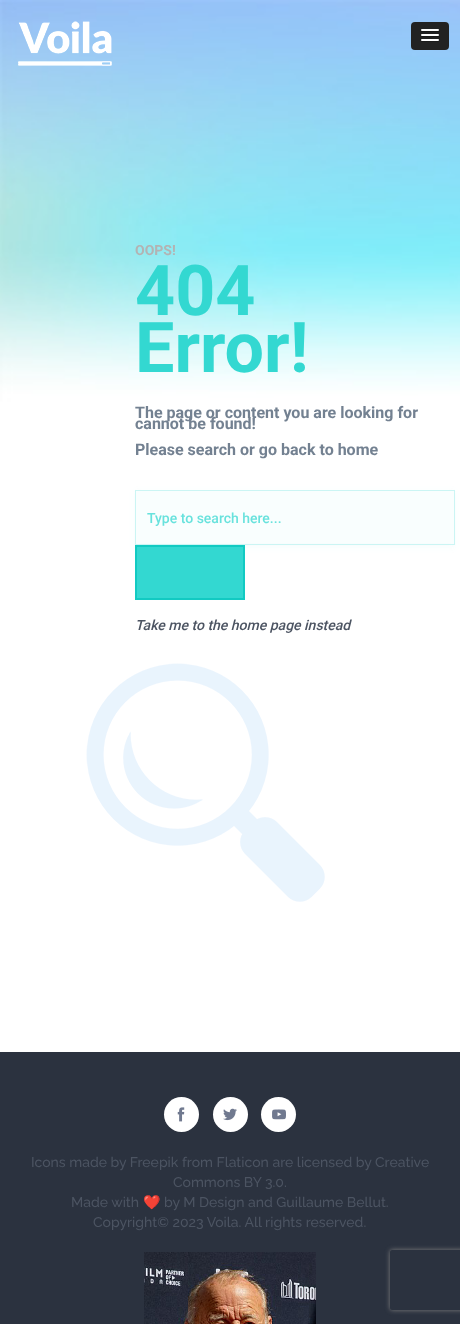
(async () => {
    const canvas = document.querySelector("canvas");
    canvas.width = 460;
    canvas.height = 1324;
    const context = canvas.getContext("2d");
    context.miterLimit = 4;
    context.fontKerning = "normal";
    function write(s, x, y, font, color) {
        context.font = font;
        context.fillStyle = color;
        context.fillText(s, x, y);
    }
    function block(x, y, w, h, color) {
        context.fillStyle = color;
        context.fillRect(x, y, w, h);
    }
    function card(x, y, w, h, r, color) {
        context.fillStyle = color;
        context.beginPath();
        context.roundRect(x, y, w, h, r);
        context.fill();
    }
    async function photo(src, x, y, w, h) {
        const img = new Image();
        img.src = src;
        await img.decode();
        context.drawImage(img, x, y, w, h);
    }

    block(0, 0, 460, 1324, "rgb(255, 255, 255)");
    await photo("media/1.png", 0, 0, 460, 1052);
    await photo("media/2.png", 18, 21, 94, 45);
    card(411, 22, 38, 28, 4, "rgb(34, 34, 34)");
    context.fillStyle = "rgb(26, 26, 26)";
    context.beginPath();
    context.moveTo(421, 30.5);
    context.bezierCurveTo(420, 32.5, 424.5, 32, 424.5, 32);
    context.lineTo(435.5, 32);
    context.bezierCurveTo(435.5, 32, 440, 32.5, 439, 30.5);
    context.bezierCurveTo(438, 31.5, 431.5, 31, 430, 31);
    context.bezierCurveTo(428.5, 31, 422, 31.5, 421, 30.5);
    context.closePath();
    context.fill();
    card(421, 29, 18, 2, 1, "rgb(255, 255, 255)");
    context.fillStyle = "rgb(26, 26, 26)";
    context.beginPath();
    context.moveTo(421, 35.5);
    context.bezierCurveTo(420, 37.5, 424.5, 37, 424.5, 37);
    context.lineTo(435.5, 37);
    context.bezierCurveTo(435.5, 37, 440, 37.5, 439, 35.5);
    context.bezierCurveTo(438, 36.5, 431.5, 36, 430, 36);
    context.bezierCurveTo(428.5, 36, 422, 36.5, 421, 35.5);
    context.closePath();
    context.fill();
    card(421, 34, 18, 2, 1, "rgb(255, 255, 255)");
    context.fillStyle = "rgb(26, 26, 26)";
    context.beginPath();
    context.moveTo(421, 40.5);
    context.bezierCurveTo(420, 42.5, 424.5, 42, 424.5, 42);
    context.lineTo(435.5, 42);
    context.bezierCurveTo(435.5, 42, 440, 42.5, 439, 40.5);
    context.bezierCurveTo(438, 41.5, 431.5, 41, 430, 41);
    context.bezierCurveTo(428.5, 41, 422, 41.5, 421, 40.5);
    context.closePath();
    context.fill();
    card(421, 39, 18, 2, 1, "rgb(255, 255, 255)");
    write("OOPS!", 135, 255, "bold 14px Roboto", "rgb(179, 179, 179)");
    write("404", 135, 315, "bold 70px Roboto", "rgb(51, 216, 209)");
    write("Error!", 135, 372, "bold 70px Roboto", "rgb(51, 216, 209)");
    write("The page or content you are looking for", 135, 418, "bold 16px Roboto", "rgb(115, 129, 145)");
    write("cannot be found!", 135, 429, "bold 16px Roboto", "rgb(115, 129, 145)");
    write("Please search or go back to home", 135, 455, "bold 16px Roboto", "rgb(115, 129, 145)");
    context.fillStyle = "rgba(51, 216, 209, 0.05)";
    context.filter = "blur(3.5px)";
    context.beginPath();
    context.rect(135, 492, 320, 55);
    context.fill();
    context.filter = "none";
    block(136, 491, 318, 52, "rgb(249, 254, 254)");
    context.strokeStyle = "rgb(203, 245, 244)";
    context.strokeRect(135.5, 490.5, 319, 54);
    write("Type to search here...", 147, 523, "500 14px Roboto", "rgb(104, 226, 221)");
    context.fillStyle = "rgb(51, 216, 209)";
    context.beginPath();
    context.rect(136, 546, 108, 53);
    context.fill();
    context.strokeStyle = "rgb(18, 202, 194)";
    context.lineWidth = 2;
    context.stroke();
    write("Take me to the home page instead", 135, 630, "italic 500 14px Roboto", "rgb(76, 84, 98)");
    await photo("media/3.png", 86, 663, 239, 239);
    block(0, 1052, 460, 272, "rgb(43, 50, 63)");
    context.fillStyle = "rgb(255, 255, 255)";
    context.beginPath();
    context.arc(181.5, 1114.5, 17.5, 0, Math.PI * 2);
    context.fill();
    await photo("media/4.png", 177, 1107, 8, 15);
    context.beginPath();
    context.arc(230.5, 1114.5, 17.5, 0, Math.PI * 2);
    context.fill();
    await photo("media/5.png", 223, 1108, 14, 13);
    context.beginPath();
    context.arc(278.5, 1114.5, 17.5, 0, Math.PI * 2);
    context.fill();
    await photo("media/6.png", 272, 1109, 14, 11);
    write("Icons made by Freepik from Flaticon are licensed by Creative", 31, 1167, "500 14px Raleway", "rgb(76, 84, 98)");
    write("Commons BY 3.0.", 173, 1187, "500 14px Raleway", "rgb(76, 84, 98)");
    write("Made with", 71, 1207, "500 14px Raleway", "rgb(76, 84, 98)");
    write("❤️", 143, 1207, "14px Noto Color Emoji", "rgb(76, 84, 98)");
    write("by M Design and Guillaume Bellut.", 164, 1207, "500 14px Raleway", "rgb(76, 84, 98)");
    write("Copyright© 2023 Voila. All rights reserved.", 93, 1227, "500 14px Raleway", "rgb(76, 84, 98)");
    await photo("media/7.png", 144, 1252, 172, 72);
    context.save();
    context.beginPath();
    context.moveTo(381, 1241);
    context.lineTo(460, 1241);
    context.lineTo(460, 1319);
    context.lineTo(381, 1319);
    context.closePath();
    context.moveTo(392, 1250);
    context.lineTo(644, 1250);
    context.bezierCurveTo(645, 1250, 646, 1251, 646, 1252);
    context.lineTo(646, 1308);
    context.bezierCurveTo(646, 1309, 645, 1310, 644, 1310);
    context.lineTo(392, 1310);
    context.bezierCurveTo(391, 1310, 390, 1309, 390, 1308);
    context.lineTo(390, 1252);
    context.bezierCurveTo(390, 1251, 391, 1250, 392, 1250);
    context.closePath();
    context.clip("evenodd");
    context.fillStyle = "rgb(128, 128, 128)";
    context.filter = "blur(2.5px)";
    context.beginPath();
    context.roundRect(390, 1250, 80, 60, 2);
    context.fill();
    context.filter = "none";
    context.restore();
})();
